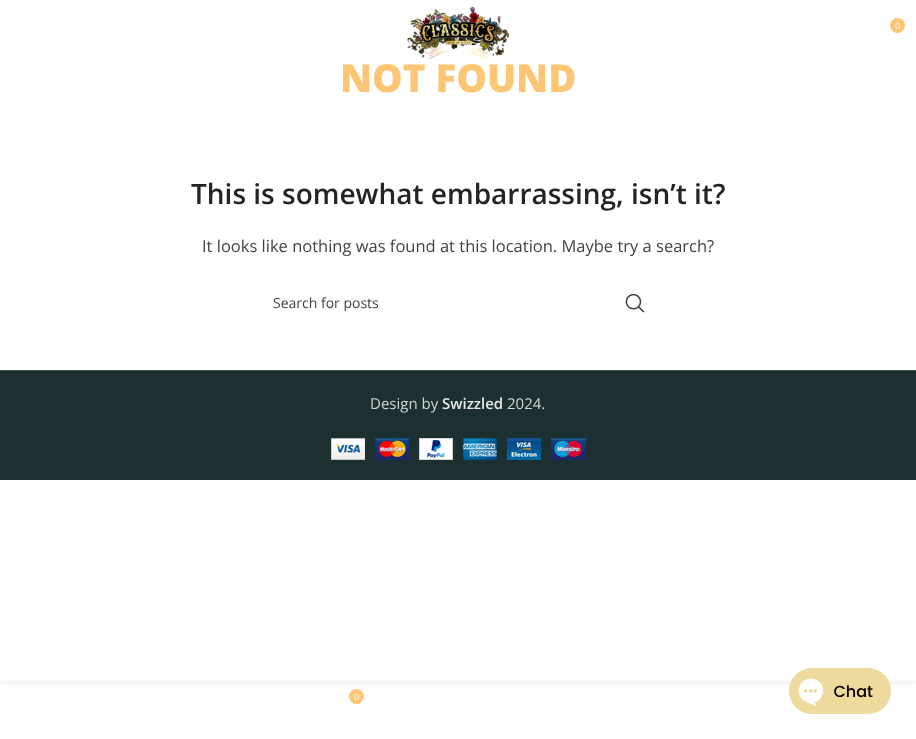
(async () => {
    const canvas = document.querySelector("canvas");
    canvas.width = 916;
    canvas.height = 739;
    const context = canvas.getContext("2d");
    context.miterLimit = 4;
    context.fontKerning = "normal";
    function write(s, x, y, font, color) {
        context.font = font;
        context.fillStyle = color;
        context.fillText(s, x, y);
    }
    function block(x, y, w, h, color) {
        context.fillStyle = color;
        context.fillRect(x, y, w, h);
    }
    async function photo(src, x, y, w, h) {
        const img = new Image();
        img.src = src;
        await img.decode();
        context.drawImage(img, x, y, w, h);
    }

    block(0, 0, 916, 739, "rgb(255, 255, 255)");
    await photo("media/1.png", 407, 6, 102, 53);
    context.fillStyle = "rgb(253, 198, 116)";
    context.beginPath();
    context.arc(897.5, 25.5, 7.5, 0, Math.PI * 2);
    context.fill();
    write("0", 895, 29, "9px Open Sans", "rgb(255, 255, 255)");
    write("NOT FOUND", 340, 92, "800 38.5px Open Sans", "rgb(253, 198, 116)");
    write("This is somewhat embarrassing, isn’t it?", 191, 204, "600 28px Open Sans", "rgb(36, 36, 36)");
    write("It looks like nothing was found at this location. Maybe try a search?", 202, 252, "16.5px Open Sans", "rgb(66, 66, 66)");
    write("Search for posts", 273, 308, "14px Open Sans", "rgb(66, 66, 66)");
    await photo("media/2.png", 625, 293, 20, 20);
    block(0, 371, 916, 109, "rgb(29, 48, 49)");
    block(0, 370, 916, 1, "rgb(63, 79, 80)");
    write("Design by", 370, 409, "15px Open Sans", "rgb(210, 214, 214)");
    write("Swizzled", 442, 409, "600 15px Open Sans", "rgb(232, 234, 234)");
    write("2024.", 507, 409, "15px Open Sans", "rgb(210, 214, 214)");
    await photo("media/3.png", 331, 438, 255, 22);
    context.save();
    context.beginPath();
    context.rect(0, 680, 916, 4);
    context.clip();
    context.fillStyle = "rgba(0, 0, 0, 0.12)";
    context.filter = "blur(4.5px)";
    context.beginPath();
    context.rect(0, 684, 916, 55);
    context.fill();
    context.filter = "none";
    context.restore();
    context.fillStyle = "rgb(253, 198, 116)";
    context.beginPath();
    context.arc(356.5, 696.5, 7.5, 0, Math.PI * 2);
    context.fill();
    write("0", 354, 700, "9px Open Sans", "rgb(255, 255, 255)");
    await photo("media/4.png", 789, 668, 102, 46);
})();
